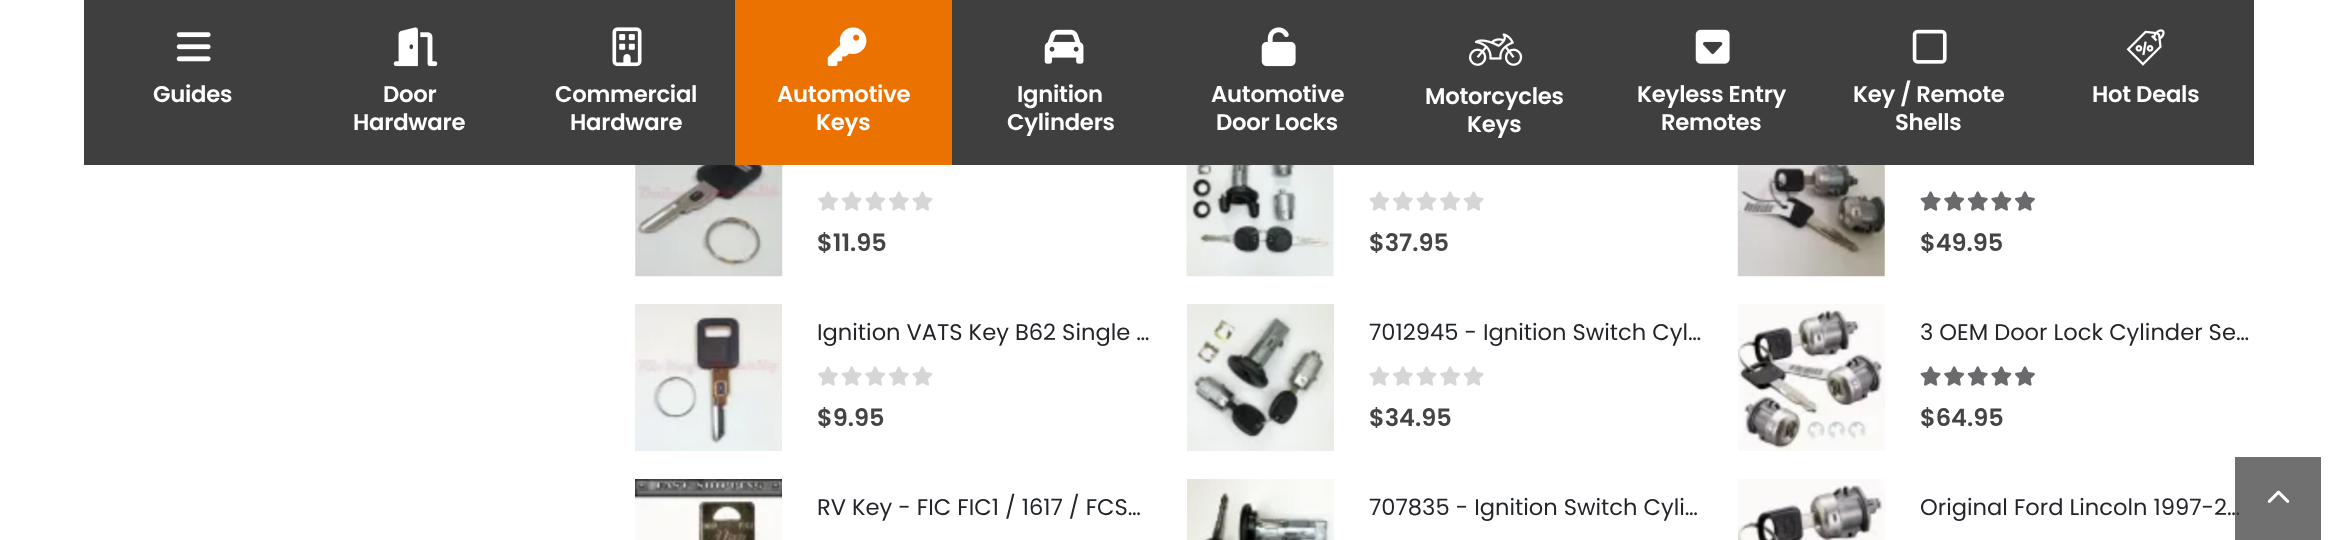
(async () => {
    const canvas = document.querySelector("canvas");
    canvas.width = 2338;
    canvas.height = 540;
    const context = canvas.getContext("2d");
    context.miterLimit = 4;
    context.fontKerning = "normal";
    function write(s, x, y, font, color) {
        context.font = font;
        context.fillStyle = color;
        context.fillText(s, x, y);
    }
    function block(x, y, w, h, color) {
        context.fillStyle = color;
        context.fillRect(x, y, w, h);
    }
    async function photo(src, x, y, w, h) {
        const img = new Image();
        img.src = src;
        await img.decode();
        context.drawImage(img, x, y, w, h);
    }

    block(0, 0, 2338, 540, "rgb(255, 255, 255)");
    block(84, 0, 2170, 165, "rgb(64, 63, 63)");
    await photo("media/1.png", 176, 32, 35, 30);
    context.letterSpacing = "-0.25px";
    write("Guides", 153, 102, "600 22.75px Poppins", "rgb(255, 255, 255)");
    await photo("media/2.png", 393, 27, 45, 40);
    write("Door", 383, 102, "600 22.75px Poppins", "rgb(255, 255, 255)");
    write("Hardware", 353, 130, "600 22.75px Poppins", "rgb(255, 255, 255)");
    await photo("media/3.png", 612, 27, 30, 40);
    write("Commercial", 555, 102, "600 22.75px Poppins", "rgb(255, 255, 255)");
    write("Hardware", 570, 130, "600 22.75px Poppins", "rgb(255, 255, 255)");
    block(735, 0, 217, 165, "rgb(236, 114, 0)");
    await photo("media/4.png", 827, 27, 40, 40);
    write("Automotive", 777, 102, "600 22.75px Poppins", "rgb(255, 255, 255)");
    write("Keys", 816, 130, "600 22.75px Poppins", "rgb(255, 255, 255)");
    await photo("media/5.png", 1044, 29, 40, 35);
    write("Ignition", 1017, 102, "600 22.75px Poppins", "rgb(255, 255, 255)");
    write("Cylinders", 1007, 130, "600 22.75px Poppins", "rgb(255, 255, 255)");
    await photo("media/6.png", 1261, 27, 35, 40);
    write("Automotive", 1211, 102, "600 22.75px Poppins", "rgb(255, 255, 255)");
    write("Door Locks", 1216, 130, "600 22.75px Poppins", "rgb(255, 255, 255)");
    await photo("media/7.png", 1468, 33, 55, 33);
    write("Motorcycles", 1425, 104, "600 22.75px Poppins", "rgb(255, 255, 255)");
    write("Keys", 1467, 132, "600 22.75px Poppins", "rgb(255, 255, 255)");
    await photo("media/8.png", 1695, 29, 35, 35);
    write("Keyless Entry", 1637, 102, "600 22.75px Poppins", "rgb(255, 255, 255)");
    write("Remotes", 1661, 130, "600 22.75px Poppins", "rgb(255, 255, 255)");
    await photo("media/9.png", 1912, 29, 35, 35);
    write("Key / Remote", 1853, 102, "600 22.75px Poppins", "rgb(255, 255, 255)");
    write("Shells", 1895, 130, "600 22.75px Poppins", "rgb(255, 255, 255)");
    await photo("media/10.png", 2126, 29, 39, 37);
    write("Hot Deals", 2092, 102, "600 22.75px Poppins", "rgb(255, 255, 255)");
    await photo("media/11.png", 635, 165, 148, 112);
    await photo("media/12.png", 818, 191, 115, 20);
    context.letterSpacing = "0px";
    write("$11.95", 817, 251, "600 24px Poppins", "rgb(68, 68, 68)");
    await photo("media/13.png", 635, 304, 147, 147);
    write("Ignition VATS Key B62 Single …", 817, 340, "22.6px Poppins", "rgb(34, 37, 41)");
    await photo("media/12.png", 818, 366, 115, 20);
    write("$9.95", 817, 426, "600 24px Poppins", "rgb(68, 68, 68)");
    await photo("media/14.png", 635, 479, 147, 61);
    write("RV Key - FIC FIC1 / 1617 / FCS…", 817, 515, "22.6px Poppins", "rgb(34, 37, 41)");
    await photo("media/15.png", 1186, 165, 148, 112);
    await photo("media/16.png", 1369, 191, 115, 20);
    write("$37.95", 1369, 251, "600 24px Poppins", "rgb(68, 68, 68)");
    await photo("media/17.png", 1187, 304, 147, 147);
    write("7012945 - Ignition Switch Cyl…", 1369, 340, "22.6px Poppins", "rgb(34, 37, 41)");
    await photo("media/16.png", 1369, 366, 115, 20);
    write("$34.95", 1369, 426, "600 24px Poppins", "rgb(68, 68, 68)");
    await photo("media/18.png", 1187, 479, 147, 61);
    write("707835 - Ignition Switch Cyli…", 1369, 515, "22.6px Poppins", "rgb(34, 37, 41)");
    await photo("media/19.png", 1737, 165, 148, 112);
    await photo("media/20.png", 1920, 191, 115, 20);
    await photo("media/21.png", 1920, 191, 115, 20);
    write("$49.95", 1920, 251, "600 24px Poppins", "rgb(68, 68, 68)");
    await photo("media/22.png", 1738, 304, 147, 147);
    write("3 OEM Door Lock Cylinder Se…", 1920, 340, "22.6px Poppins", "rgb(34, 37, 41)");
    await photo("media/20.png", 1920, 366, 115, 20);
    await photo("media/21.png", 1920, 366, 115, 20);
    write("$64.95", 1920, 426, "600 24px Poppins", "rgb(68, 68, 68)");
    await photo("media/23.png", 1738, 479, 147, 61);
    write("Original Ford Lincoln 1997-2…", 1920, 515, "22.6px Poppins", "rgb(34, 37, 41)");
    block(2235, 457, 86, 83, "rgba(64, 64, 64, 0.75)");
    await photo("media/24.png", 2267, 490, 23, 13);
})();
